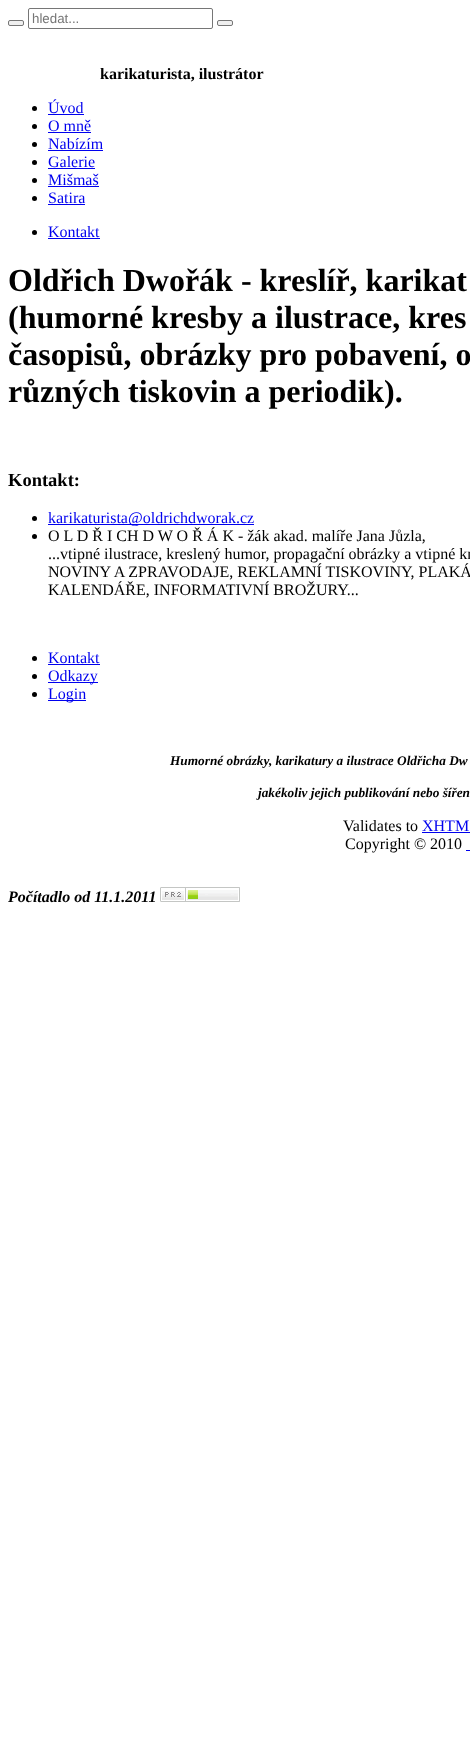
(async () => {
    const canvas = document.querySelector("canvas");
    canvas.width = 470;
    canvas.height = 1738;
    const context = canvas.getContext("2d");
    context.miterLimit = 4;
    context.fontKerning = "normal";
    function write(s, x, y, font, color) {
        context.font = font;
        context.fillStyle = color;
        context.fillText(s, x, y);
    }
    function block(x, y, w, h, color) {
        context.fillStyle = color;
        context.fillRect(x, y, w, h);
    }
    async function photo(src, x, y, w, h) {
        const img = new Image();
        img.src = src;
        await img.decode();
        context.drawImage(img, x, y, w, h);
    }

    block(0, 0, 470, 1738, "rgb(255, 255, 255)");
    context.fillStyle = "rgb(239, 239, 239)";
    context.beginPath();
    context.roundRect(8.5, 20.5, 15, 5, 1.5);
    context.fill();
    context.strokeStyle = "rgb(118, 118, 118)";
    context.stroke();
    context.beginPath();
    context.roundRect(28.5, 8.5, 184, 20, 1.5);
    context.stroke();
    write("hledat...", 32, 23, "13.3px Liberation Sans", "rgb(117, 117, 117)");
    context.fillStyle = "rgb(239, 239, 239)";
    context.beginPath();
    context.roundRect(217.5, 20.5, 15, 5, 1.5);
    context.fill();
    context.stroke();
    write("karikaturista, ilustrátor", 100, 79, "bold 16px Liberation Serif", "rgb(0, 0, 0)");
    context.beginPath();
    context.arc(34.5, 108.5, 2.5, 0, Math.PI * 2);
    context.fill();
    write("Úvod", 48, 113, "16px Liberation Serif", "rgb(0, 0, 238)");
    block(48, 114, 36, 1, "rgb(0, 0, 238)");
    context.fillStyle = "rgb(0, 0, 0)";
    context.beginPath();
    context.arc(34.5, 126.5, 2.5, 0, Math.PI * 2);
    context.fill();
    write("O mně", 48, 131, "16px Liberation Serif", "rgb(0, 0, 238)");
    block(48, 132, 43, 1, "rgb(0, 0, 238)");
    context.fillStyle = "rgb(0, 0, 0)";
    context.beginPath();
    context.arc(34.5, 144.5, 2.5, 0, Math.PI * 2);
    context.fill();
    write("Nabízím", 48, 149, "16px Liberation Serif", "rgb(0, 0, 238)");
    block(48, 150, 55, 1, "rgb(0, 0, 238)");
    context.fillStyle = "rgb(0, 0, 0)";
    context.beginPath();
    context.arc(34.5, 162.5, 2.5, 0, Math.PI * 2);
    context.fill();
    write("Galerie", 48, 167, "16px Liberation Serif", "rgb(0, 0, 238)");
    block(48, 168, 47, 1, "rgb(0, 0, 238)");
    context.fillStyle = "rgb(0, 0, 0)";
    context.beginPath();
    context.arc(34.5, 180.5, 2.5, 0, Math.PI * 2);
    context.fill();
    write("Mišmaš", 48, 185, "16px Liberation Serif", "rgb(0, 0, 238)");
    block(48, 186, 51, 1, "rgb(0, 0, 238)");
    context.fillStyle = "rgb(0, 0, 0)";
    context.beginPath();
    context.arc(34.5, 198.5, 2.5, 0, Math.PI * 2);
    context.fill();
    write("Satira", 48, 203, "16px Liberation Serif", "rgb(0, 0, 238)");
    block(48, 204, 37, 1, "rgb(0, 0, 238)");
    context.fillStyle = "rgb(0, 0, 0)";
    context.beginPath();
    context.arc(34.5, 232.5, 2.5, 0, Math.PI * 2);
    context.fill();
    write("Kontakt", 48, 237, "16px Liberation Serif", "rgb(0, 0, 238)");
    block(48, 238, 52, 1, "rgb(0, 0, 238)");
    write("Oldřich Dwořák - kreslíř, karikat", 8, 291, "bold 32px Liberation Serif", "rgb(0, 0, 0)");
    write("(humorné kresby a ilustrace, kres", 8, 328, "bold 32px Liberation Serif", "rgb(0, 0, 0)");
    write("časopisů, obrázky pro pobavení, o", 8, 365, "bold 32px Liberation Serif", "rgb(0, 0, 0)");
    write("různých tiskovin a periodik).", 8, 402, "bold 32px Liberation Serif", "rgb(0, 0, 0)");
    write("Kontakt:", 8, 486, "bold 18.5px Liberation Serif", "rgb(0, 0, 0)");
    context.beginPath();
    context.arc(34.5, 518.5, 2.5, 0, Math.PI * 2);
    context.fill();
    block(48, 524, 206, 1, "rgb(0, 0, 238)");
    write("karikaturista@oldrichdworak.cz", 48, 523, "16px Liberation Serif", "rgb(0, 0, 238)");
    context.fillStyle = "rgb(0, 0, 0)";
    context.beginPath();
    context.arc(34.5, 536.5, 2.5, 0, Math.PI * 2);
    context.fill();
    write("O L D Ř I CH D W O Ř Á K - žák akad. malíře Jana Jůzla,", 48, 541, "16px Liberation Serif", "rgb(0, 0, 0)");
    write("...vtipné ilustrace, kreslený humor, propagační obrázky a vtipné kr", 48, 559, "16px Liberation Serif", "rgb(0, 0, 0)");
    write("NOVINY A ZPRAVODAJE, REKLAMNÍ TISKOVINY, PLAKÁ", 48, 577, "16px Liberation Serif", "rgb(0, 0, 0)");
    write("KALENDÁŘE, INFORMATIVNÍ BROŽURY...", 48, 595, "16px Liberation Serif", "rgb(0, 0, 0)");
    context.beginPath();
    context.arc(34.5, 658.5, 2.5, 0, Math.PI * 2);
    context.fill();
    write("Kontakt", 48, 663, "16px Liberation Serif", "rgb(0, 0, 238)");
    block(48, 664, 52, 1, "rgb(0, 0, 238)");
    context.fillStyle = "rgb(0, 0, 0)";
    context.beginPath();
    context.arc(34.5, 676.5, 2.5, 0, Math.PI * 2);
    context.fill();
    block(48, 682, 50, 1, "rgb(0, 0, 238)");
    write("Odkazy", 48, 681, "16px Liberation Serif", "rgb(0, 0, 238)");
    context.fillStyle = "rgb(0, 0, 0)";
    context.beginPath();
    context.arc(34.5, 694.5, 2.5, 0, Math.PI * 2);
    context.fill();
    block(48, 700, 38, 1, "rgb(0, 0, 238)");
    write("Login", 48, 699, "16px Liberation Serif", "rgb(0, 0, 238)");
    write("Humorné obrázky, karikatury a ilustrace Oldřicha Dw", 170, 765, "italic bold 13.3px Liberation Serif", "rgb(0, 0, 0)");
    write("jakékoliv jejich publikování nebo šířen", 258, 797, "italic bold 13.3px Liberation Serif", "rgb(0, 0, 0)");
    write("Validates to", 343, 831, "16px Liberation Serif", "rgb(0, 0, 0)");
    write("XHTM", 422, 831, "16px Liberation Serif", "rgb(0, 0, 238)");
    block(422, 832, 48, 1, "rgb(0, 0, 238)");
    write("Copyright © 2010", 345, 849, "16px Liberation Serif", "rgb(0, 0, 0)");
    block(466, 850, 4, 1, "rgb(0, 0, 238)");
    write("Počítadlo od 11.1.2011", 8, 902, "italic bold 16px Liberation Serif", "rgb(0, 0, 0)");
    await photo("media/1.png", 160, 887, 80, 15);
})();
